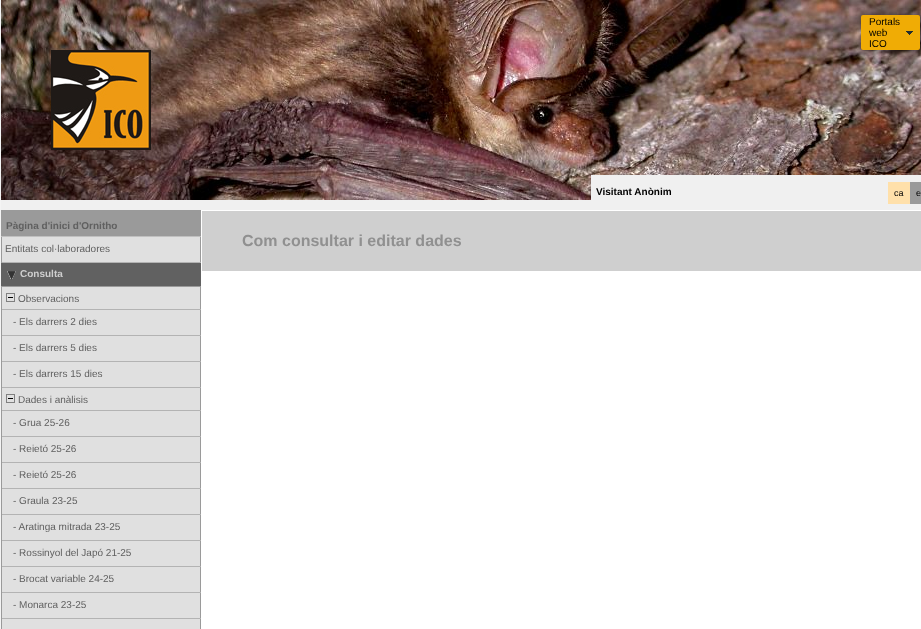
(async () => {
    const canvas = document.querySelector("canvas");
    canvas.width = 921;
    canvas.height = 629;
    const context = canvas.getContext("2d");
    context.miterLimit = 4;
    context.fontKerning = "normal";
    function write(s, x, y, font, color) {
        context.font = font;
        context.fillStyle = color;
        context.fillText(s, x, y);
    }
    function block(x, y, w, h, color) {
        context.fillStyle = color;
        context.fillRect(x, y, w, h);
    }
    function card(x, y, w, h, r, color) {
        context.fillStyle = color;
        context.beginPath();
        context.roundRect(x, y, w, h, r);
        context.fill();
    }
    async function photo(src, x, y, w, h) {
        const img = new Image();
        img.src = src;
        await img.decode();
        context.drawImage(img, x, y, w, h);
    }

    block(0, 0, 921, 629, "rgb(244, 244, 244)");
    await photo("media/2.png", 1, 0, 920, 200);
    context.fillStyle = "rgba(0, 0, 0, 0.5)";
    context.filter = "blur(2.5px)";
    context.beginPath();
    context.roundRect(862, 16, 59, 35, 2);
    context.fill();
    context.filter = "none";
    card(861, 15, 59, 35, 2, "rgb(240, 172, 5)");
    await photo("media/1.png", 906, 31, 7, 4);
    write("Portals", 869, 25, "10px Liberation Sans", "rgb(0, 0, 0)");
    write("web", 869, 36, "10px Liberation Sans", "rgb(0, 0, 0)");
    write("ICO", 869, 47, "10px Liberation Sans", "rgb(0, 0, 0)");
    await photo("media/3.png", 51, 50, 100, 100);
    block(591, 175, 330, 25, "rgb(240, 240, 240)");
    write("Visitant Anònim", 596, 195, "bold 10px Liberation Sans", "rgb(0, 0, 0)");
    block(1, 200, 920, 10, "rgb(240, 240, 240)");
    block(888, 182, 22, 22, "rgb(255, 224, 170)");
    write("ca", 894, 196, "9px Liberation Sans", "rgb(0, 0, 0)");
    block(910, 182, 11, 22, "rgb(154, 154, 154)");
    write("e", 916, 196, "9px Liberation Sans", "rgb(0, 0, 0)");
    block(201, 210, 720, 419, "rgb(255, 255, 255)");
    block(1, 210, 200, 26, "rgb(154, 154, 154)");
    block(1, 236, 200, 1, "rgb(192, 192, 192)");
    write("Pàgina d'inici d'Ornitho", 6, 229, "bold 10px Liberation Sans", "rgb(96, 96, 96)");
    block(2, 237, 198, 25, "rgb(224, 224, 224)");
    block(200, 237, 1, 26, "rgb(154, 154, 154)");
    block(1, 262, 200, 1, "rgb(179, 179, 179)");
    block(1, 237, 1, 26, "rgb(154, 154, 154)");
    write("Entitats col·laboradores", 5, 252, "10px Liberation Sans", "rgb(96, 96, 96)");
    block(1, 263, 200, 23, "rgb(97, 97, 97)");
    block(1, 286, 200, 1, "rgb(154, 154, 154)");
    await photo("media/4.png", 7, 271, 9, 9);
    write("Consulta", 20, 277, "bold 10px Liberation Sans", "rgb(207, 207, 207)");
    block(2, 287, 198, 22, "rgb(224, 224, 224)");
    block(200, 287, 1, 342, "rgb(154, 154, 154)");
    block(1, 309, 200, 1, "rgb(179, 179, 179)");
    block(1, 287, 1, 23, "rgb(154, 154, 154)");
    await photo("media/5.png", 6, 293, 9, 9);
    write("Observacions", 18, 302, "10px Liberation Sans", "rgb(96, 96, 96)");
    block(2, 310, 198, 25, "rgb(224, 224, 224)");
    block(1, 335, 200, 1, "rgb(179, 179, 179)");
    block(1, 310, 1, 26, "rgb(154, 154, 154)");
    write("- Els darrers 2 dies", 13, 325, "10px Liberation Sans", "rgb(96, 96, 96)");
    block(2, 336, 198, 25, "rgb(224, 224, 224)");
    block(1, 361, 200, 1, "rgb(179, 179, 179)");
    block(1, 336, 1, 26, "rgb(154, 154, 154)");
    write("- Els darrers 5 dies", 13, 351, "10px Liberation Sans", "rgb(96, 96, 96)");
    block(2, 362, 198, 25, "rgb(224, 224, 224)");
    block(1, 387, 200, 1, "rgb(179, 179, 179)");
    block(1, 362, 1, 26, "rgb(154, 154, 154)");
    write("- Els darrers 15 dies", 13, 377, "10px Liberation Sans", "rgb(96, 96, 96)");
    block(2, 388, 198, 22, "rgb(224, 224, 224)");
    block(1, 410, 200, 1, "rgb(179, 179, 179)");
    block(1, 388, 1, 23, "rgb(154, 154, 154)");
    await photo("media/5.png", 6, 394, 9, 9);
    write("Dades i anàlisis", 18, 403, "10px Liberation Sans", "rgb(96, 96, 96)");
    block(2, 411, 198, 25, "rgb(224, 224, 224)");
    block(1, 436, 200, 1, "rgb(179, 179, 179)");
    block(1, 411, 1, 26, "rgb(154, 154, 154)");
    write("- Grua 25-26", 13, 426, "10px Liberation Sans", "rgb(96, 96, 96)");
    block(2, 437, 198, 25, "rgb(224, 224, 224)");
    block(1, 462, 200, 1, "rgb(179, 179, 179)");
    block(1, 437, 1, 26, "rgb(154, 154, 154)");
    write("- Reietó 25-26", 13, 452, "10px Liberation Sans", "rgb(96, 96, 96)");
    block(2, 463, 198, 25, "rgb(224, 224, 224)");
    block(1, 488, 200, 1, "rgb(179, 179, 179)");
    block(1, 463, 1, 26, "rgb(154, 154, 154)");
    write("- Reietó 25-26", 13, 478, "10px Liberation Sans", "rgb(96, 96, 96)");
    block(2, 489, 198, 25, "rgb(224, 224, 224)");
    block(1, 514, 200, 1, "rgb(179, 179, 179)");
    block(1, 489, 1, 26, "rgb(154, 154, 154)");
    write("- Graula 23-25", 13, 504, "10px Liberation Sans", "rgb(96, 96, 96)");
    block(2, 515, 198, 25, "rgb(224, 224, 224)");
    block(1, 540, 200, 1, "rgb(179, 179, 179)");
    block(1, 515, 1, 26, "rgb(154, 154, 154)");
    write("- Aratinga mitrada 23-25", 13, 530, "10px Liberation Sans", "rgb(96, 96, 96)");
    block(2, 541, 198, 25, "rgb(224, 224, 224)");
    block(1, 566, 200, 1, "rgb(179, 179, 179)");
    block(1, 541, 1, 26, "rgb(154, 154, 154)");
    write("- Rossinyol del Japó 21-25", 13, 556, "10px Liberation Sans", "rgb(96, 96, 96)");
    block(2, 567, 198, 25, "rgb(224, 224, 224)");
    block(1, 592, 200, 1, "rgb(179, 179, 179)");
    block(1, 567, 1, 26, "rgb(154, 154, 154)");
    write("- Brocat variable 24-25", 13, 582, "10px Liberation Sans", "rgb(96, 96, 96)");
    block(2, 593, 198, 25, "rgb(224, 224, 224)");
    block(1, 618, 200, 1, "rgb(179, 179, 179)");
    block(1, 593, 1, 36, "rgb(154, 154, 154)");
    write("- Monarca 23-25", 13, 608, "10px Liberation Sans", "rgb(96, 96, 96)");
    block(2, 619, 198, 10, "rgb(224, 224, 224)");
    block(202, 211, 719, 60, "rgb(207, 207, 207)");
    write("Com consultar i editar dades", 242, 246, "bold 16px Liberation Sans", "rgb(144, 144, 144)");
})();
